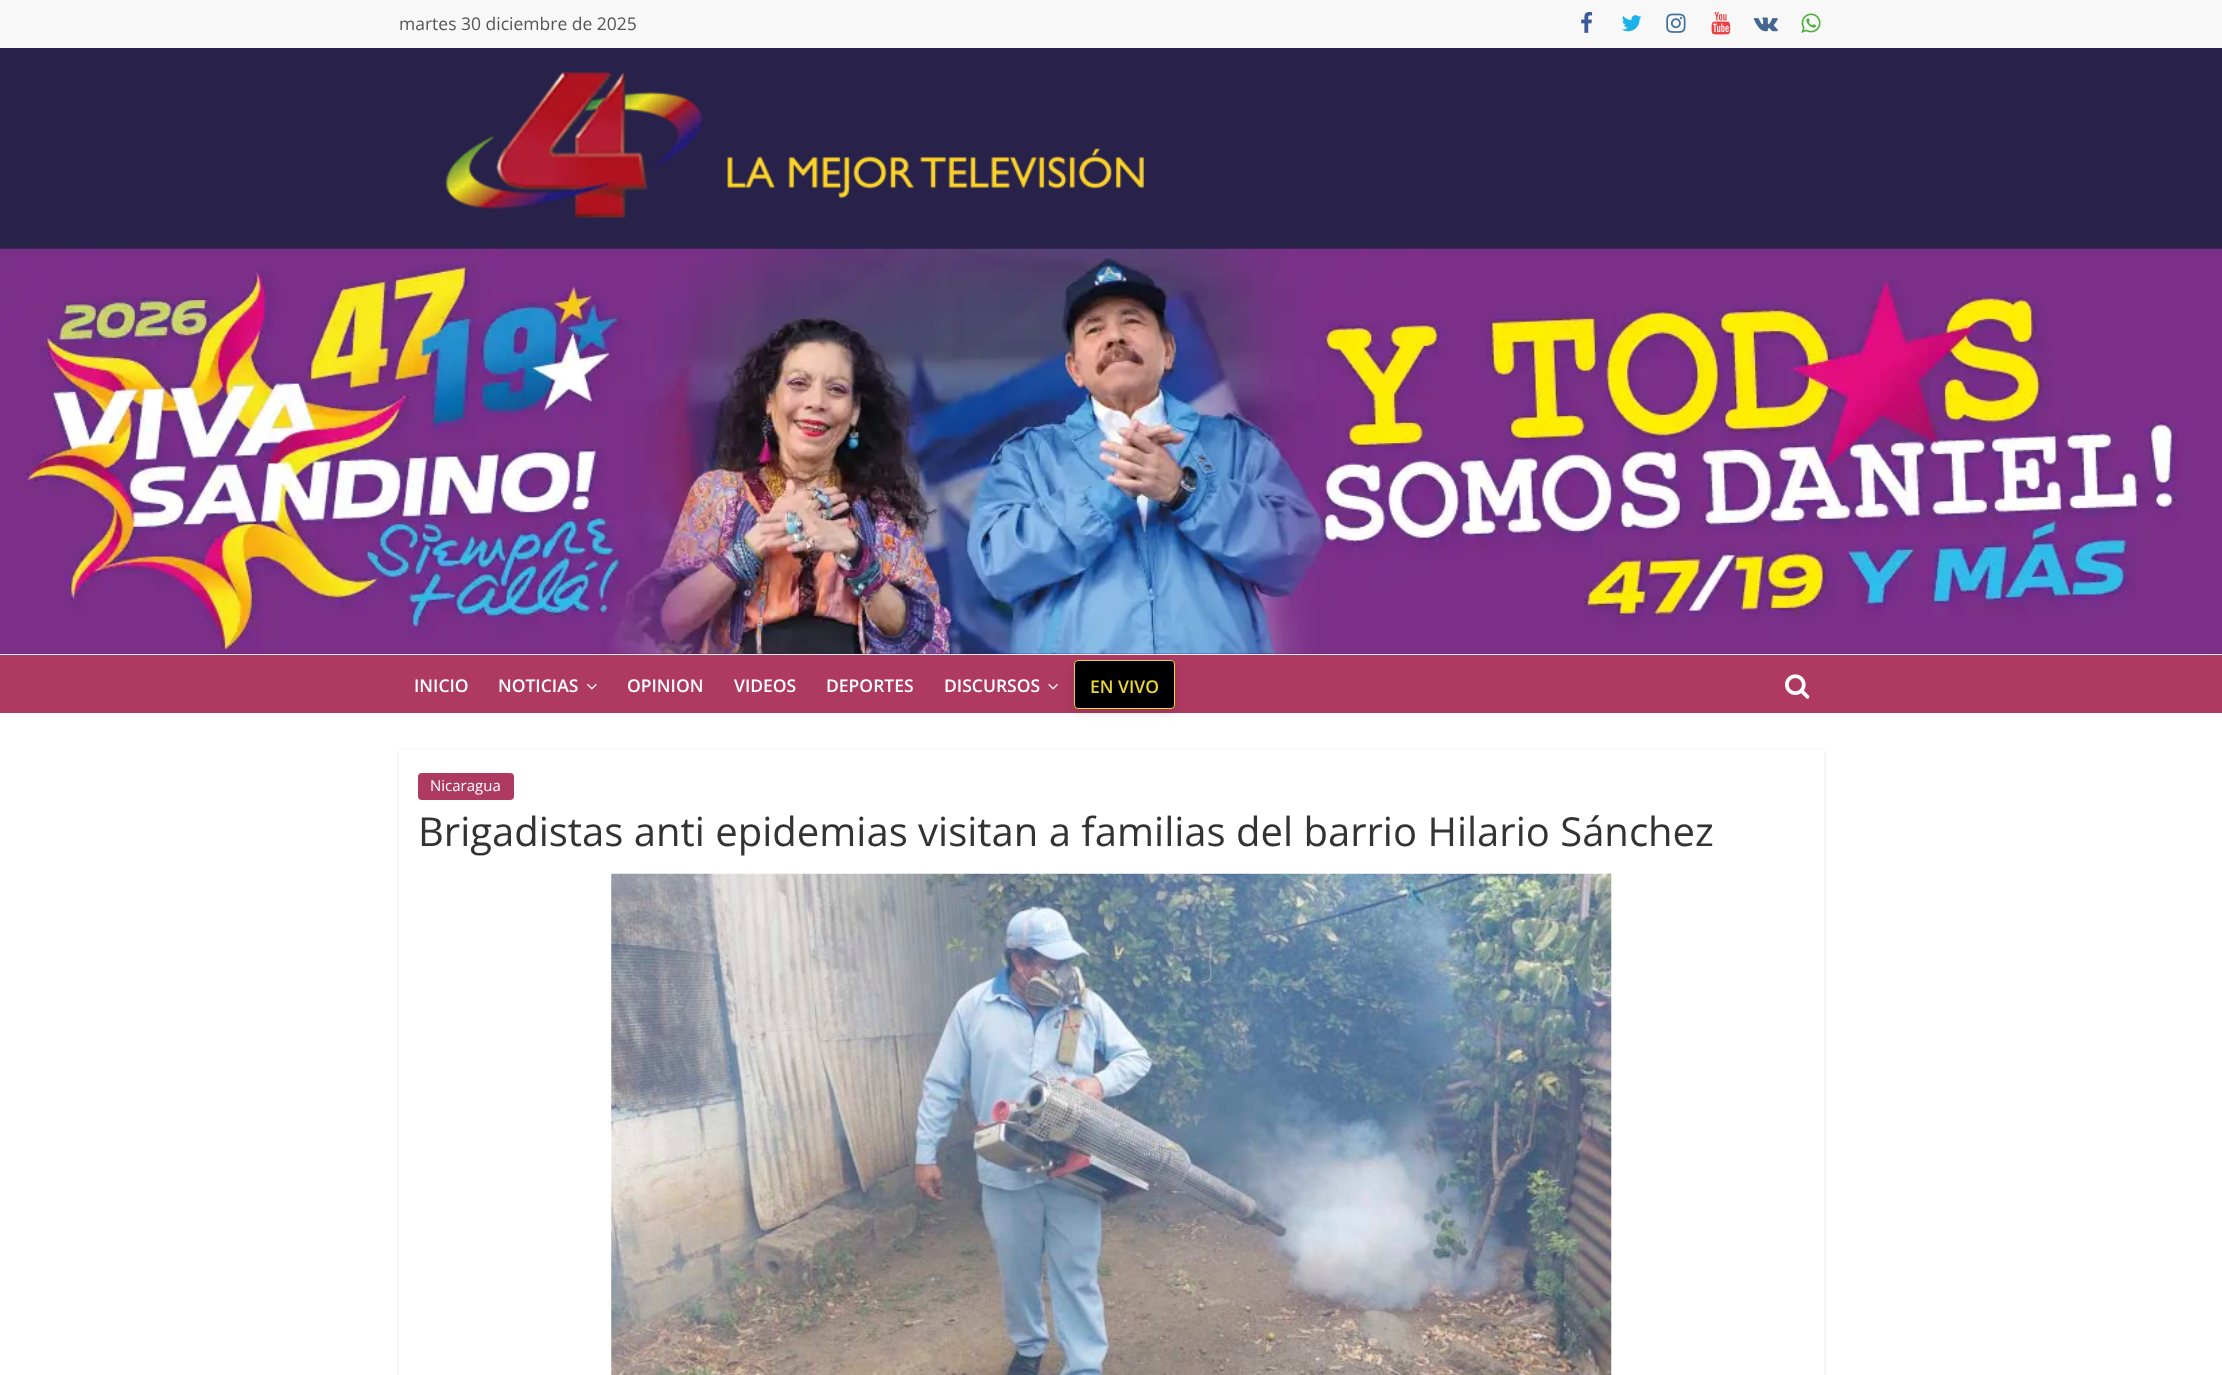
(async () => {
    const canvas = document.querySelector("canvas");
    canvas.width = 2222;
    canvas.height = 1375;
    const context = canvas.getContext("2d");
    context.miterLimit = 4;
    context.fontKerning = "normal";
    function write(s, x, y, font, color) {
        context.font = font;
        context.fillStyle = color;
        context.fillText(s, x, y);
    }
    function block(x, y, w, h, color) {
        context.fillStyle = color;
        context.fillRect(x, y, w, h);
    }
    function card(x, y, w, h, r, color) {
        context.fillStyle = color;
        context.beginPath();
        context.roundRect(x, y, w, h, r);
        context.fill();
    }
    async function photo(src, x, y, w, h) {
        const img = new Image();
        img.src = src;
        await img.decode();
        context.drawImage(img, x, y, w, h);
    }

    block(0, 0, 2222, 1375, "rgb(40, 33, 73)");
    block(0, 0, 2222, 48, "rgb(248, 248, 248)");
    write("martes 30 diciembre de 2025", 399, 30, "17.5px Open Sans", "rgb(85, 85, 85)");
    await photo("media/1.png", 1581, 12, 12, 21);
    await photo("media/2.png", 1622, 15, 20, 17);
    await photo("media/3.png", 1666, 13, 20, 20);
    await photo("media/4.png", 1711, 11, 20, 24);
    await photo("media/5.png", 1753, 17, 25, 15);
    await photo("media/6.png", 1801, 13, 20, 20);
    await photo("media/7.png", 445, 72, 699, 146);
    await photo("media/8.png", 0, 248, 2222, 406);
    block(0, 654, 2222, 1, "rgb(234, 234, 234)");
    block(0, 655, 2222, 58, "rgb(174, 58, 97)");
    write("INICIO", 414, 692, "600 17.5px Open Sans", "rgb(255, 255, 255)");
    write("NOTICIAS", 498, 692, "600 17.5px Open Sans", "rgb(255, 255, 255)");
    await photo("media/9.png", 587, 683, 10, 7);
    write("OPINION", 627, 692, "600 17.5px Open Sans", "rgb(255, 255, 255)");
    write("VIDEOS", 734, 692, "600 17.5px Open Sans", "rgb(255, 255, 255)");
    write("DEPORTES", 826, 692, "600 17.5px Open Sans", "rgb(255, 255, 255)");
    write("DISCURSOS", 944, 692, "600 17.5px Open Sans", "rgb(255, 255, 255)");
    await photo("media/10.png", 1048, 683, 10, 7);
    block(0, 713, 2222, 662, "rgb(255, 255, 255)");
    context.fillStyle = "rgba(0, 0, 0, 0.1)";
    context.filter = "blur(4px)";
    context.beginPath();
    context.roundRect(1074, 665, 101, 49, 4);
    context.fill();
    context.filter = "none";
    context.fillStyle = "rgb(0, 0, 0)";
    context.beginPath();
    context.roundRect(1074.5, 660.5, 100, 48, 3.5);
    context.fill();
    context.strokeStyle = "rgb(235, 213, 52)";
    context.stroke();
    write("EN VIVO", 1090, 693, "600 17.5px Open Sans", "rgb(235, 213, 52)");
    await photo("media/11.png", 1785, 674, 25, 25);
    context.save();
    context.beginPath();
    context.moveTo(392, 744);
    context.lineTo(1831, 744);
    context.lineTo(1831, 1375);
    context.lineTo(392, 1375);
    context.closePath();
    context.moveTo(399, 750);
    context.lineTo(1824, 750);
    context.lineTo(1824, 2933);
    context.lineTo(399, 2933);
    context.closePath();
    context.clip("evenodd");
    context.fillStyle = "rgba(0, 0, 0, 0.1)";
    context.filter = "blur(2px)";
    context.beginPath();
    context.rect(399, 751, 1425, 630);
    context.fill();
    context.filter = "none";
    context.restore();
    card(418, 773, 96, 27, 4, "rgb(174, 58, 97)");
    write("Nicaragua", 430, 791, "15px Open Sans", "rgb(255, 255, 255)");
    write("Brigadistas anti epidemias visitan a familias del barrio Hilario Sánchez", 418, 846, "40px Open Sans", "rgb(51, 51, 51)");
    await photo("media/12.png", 611, 873, 1001, 502);
})();
